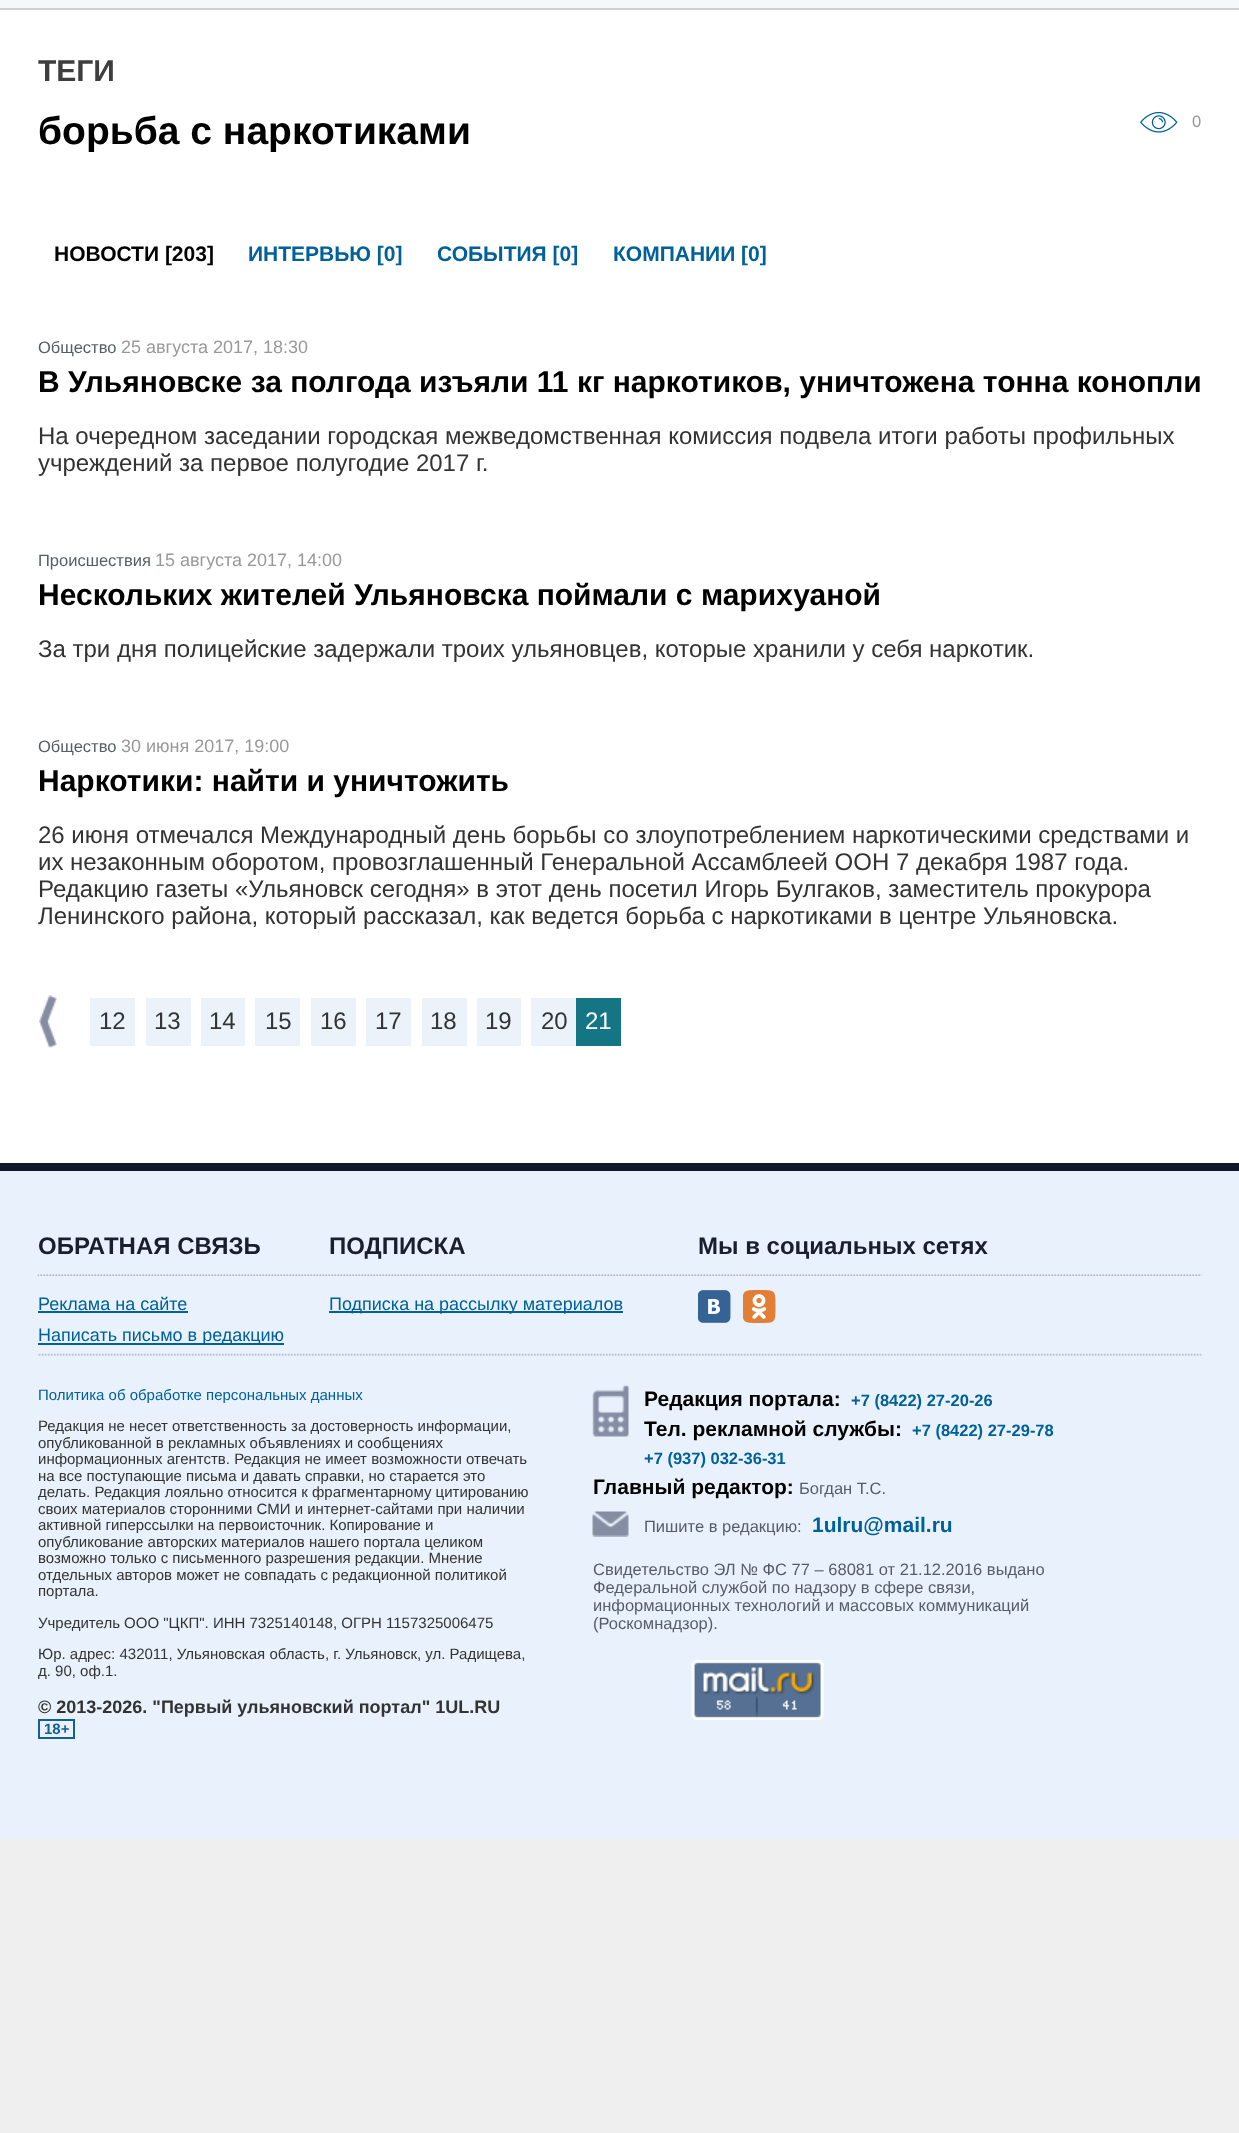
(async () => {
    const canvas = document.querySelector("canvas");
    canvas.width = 1239;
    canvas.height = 2133;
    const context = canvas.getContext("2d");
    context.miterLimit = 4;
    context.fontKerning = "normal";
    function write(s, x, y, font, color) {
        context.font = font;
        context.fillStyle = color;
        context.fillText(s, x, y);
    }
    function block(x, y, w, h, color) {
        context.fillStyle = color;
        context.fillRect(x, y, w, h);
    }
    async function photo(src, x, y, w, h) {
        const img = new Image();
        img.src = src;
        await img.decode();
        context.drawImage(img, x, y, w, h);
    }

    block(0, 0, 1239, 2133, "rgb(239, 239, 239)");
    block(0, 0, 1239, 8, "rgb(245, 247, 250)");
    block(0, 8, 1239, 2, "rgb(209, 208, 208)");
    block(0, 10, 1239, 1153, "rgb(255, 255, 255)");
    write("ТЕГИ", 38, 81, "bold 30px Liberation Sans", "rgb(62, 62, 62)");
    write("борьба с наркотиками", 38, 144, "bold 39px Liberation Sans", "rgb(0, 0, 0)");
    await photo("media/1.png", 1140, 111, 38, 22);
    write("0", 1192, 127, "16.5px Liberation Sans", "rgb(153, 153, 153)");
    write("НОВОСТИ [203]", 54, 261, "bold 21px Liberation Sans", "rgb(0, 0, 0)");
    write("ИНТЕРВЬЮ [0]", 248, 261, "bold 21px Liberation Sans", "rgb(0, 96, 153)");
    write("СОБЫТИЯ [0]", 437, 261, "bold 21px Liberation Sans", "rgb(0, 96, 153)");
    write("КОМПАНИИ [0]", 613, 261, "bold 21px Liberation Sans", "rgb(0, 96, 153)");
    write("Общество", 38, 353, "16.5px Liberation Sans", "rgb(86, 93, 102)");
    write("25 августа 2017, 18:30", 121, 353, "18px Liberation Sans", "rgb(153, 153, 153)");
    write("В Ульяновске за полгода изъяли 11 кг наркотиков, уничтожена тонна конопли", 38, 392, "bold 30px Liberation Sans", "rgb(0, 0, 0)");
    write("На очередном заседании городская межведомственная комиссия подвела итоги работы профильных", 38, 444, "24px Liberation Sans", "rgb(51, 51, 51)");
    write("учреждений за первое полугодие 2017 г.", 38, 471, "24px Liberation Sans", "rgb(51, 51, 51)");
    write("Проиcшествия", 38, 566, "16.5px Liberation Sans", "rgb(86, 93, 102)");
    write("15 августа 2017, 14:00", 155, 566, "18px Liberation Sans", "rgb(153, 153, 153)");
    write("Нескольких жителей Ульяновска поймали с марихуаной", 38, 605, "bold 30px Liberation Sans", "rgb(0, 0, 0)");
    write("За три дня полицейские задержали троих ульяновцев, которые хранили у себя наркотик.", 38, 657, "24px Liberation Sans", "rgb(51, 51, 51)");
    write("Общество", 38, 752, "16.5px Liberation Sans", "rgb(86, 93, 102)");
    write("30 июня 2017, 19:00", 121, 752, "18px Liberation Sans", "rgb(153, 153, 153)");
    write("Наркотики: найти и уничтожить", 38, 791, "bold 30px Liberation Sans", "rgb(0, 0, 0)");
    write("26 июня отмечался Международный день борьбы со злоупотреблением наркотическими средствами и", 38, 843, "24px Liberation Sans", "rgb(51, 51, 51)");
    write("их незаконным оборотом, провозглашенный Генеральной Ассамблеей ООН 7 декабря 1987 года.", 38, 870, "24px Liberation Sans", "rgb(51, 51, 51)");
    write("Редакцию газеты «Ульяновск сегодня» в этот день посетил Игорь Булгаков, заместитель прокурора", 38, 897, "24px Liberation Sans", "rgb(51, 51, 51)");
    write("Ленинского района, который рассказал, как ведется борьба с наркотиками в центре Ульяновска.", 38, 924, "24px Liberation Sans", "rgb(51, 51, 51)");
    await photo("media/2.png", 39, 995, 18, 53);
    block(90, 998, 45, 48, "rgb(235, 242, 250)");
    write("12", 99, 1029, "24px Liberation Sans", "rgb(51, 51, 51)");
    block(146, 998, 45, 48, "rgb(235, 242, 250)");
    write("13", 154, 1029, "24px Liberation Sans", "rgb(51, 51, 51)");
    block(201, 998, 44, 48, "rgb(235, 242, 250)");
    write("14", 209, 1029, "24px Liberation Sans", "rgb(51, 51, 51)");
    block(255, 998, 45, 48, "rgb(235, 242, 250)");
    write("15", 265, 1029, "24px Liberation Sans", "rgb(51, 51, 51)");
    block(311, 998, 45, 48, "rgb(235, 242, 250)");
    write("16", 320, 1029, "24px Liberation Sans", "rgb(51, 51, 51)");
    block(366, 998, 45, 48, "rgb(235, 242, 250)");
    write("17", 375, 1029, "24px Liberation Sans", "rgb(51, 51, 51)");
    block(422, 998, 45, 48, "rgb(235, 242, 250)");
    write("18", 430, 1029, "24px Liberation Sans", "rgb(51, 51, 51)");
    block(477, 998, 44, 48, "rgb(235, 242, 250)");
    write("19", 485, 1029, "24px Liberation Sans", "rgb(51, 51, 51)");
    block(531, 998, 45, 48, "rgb(235, 242, 250)");
    write("20", 541, 1029, "24px Liberation Sans", "rgb(51, 51, 51)");
    block(576, 998, 45, 48, "rgb(20, 117, 132)");
    write("21", 585, 1029, "24px Liberation Sans", "rgb(255, 255, 255)");
    block(0, 1171, 1239, 668, "rgb(233, 242, 252)");
    block(0, 1163, 1239, 8, "rgb(15, 25, 43)");
    await photo("media/3.png", 37, 1274, 1165, 82);
    write("ОБРАТНАЯ СВЯЗЬ", 38, 1254, "bold 24px Liberation Sans", "rgb(25, 31, 46)");
    write("Реклама на сайте", 38, 1310, "18px Liberation Sans", "rgb(0, 96, 153)");
    block(38, 1311, 150, 2, "rgb(0, 96, 153)");
    block(38, 1343, 246, 2, "rgb(0, 96, 153)");
    write("Написать письмо в редакцию", 38, 1341, "18px Liberation Sans", "rgb(0, 96, 153)");
    write("ПОДПИСКА", 329, 1254, "bold 24px Liberation Sans", "rgb(25, 31, 46)");
    block(329, 1311, 294, 2, "rgb(0, 96, 153)");
    write("Подписка на рассылку материалов", 329, 1310, "18px Liberation Sans", "rgb(0, 96, 153)");
    write("Мы в социальных сетях", 698, 1254, "bold 24px Liberation Sans", "rgb(25, 31, 46)");
    await photo("media/4.png", 698, 1290, 33, 33);
    await photo("media/5.png", 743, 1290, 33, 33);
    write("Политика об обработке персональных данных", 38, 1400, "15px Liberation Sans", "rgb(0, 96, 153)");
    write("Редакция не несет ответственность за достоверность информации,", 38, 1431, "15px Liberation Sans", "rgb(51, 51, 51)");
    write("опубликованной в рекламных объявлениях и сообщениях", 38, 1448, "15px Liberation Sans", "rgb(51, 51, 51)");
    write("информационных агентств. Редакция не имеет возможности отвечать", 38, 1464, "15px Liberation Sans", "rgb(51, 51, 51)");
    write("на все поступающие письма и давать справки, но старается это", 38, 1481, "15px Liberation Sans", "rgb(51, 51, 51)");
    write("делать. Редакция лояльно относится к фрагментарному цитированию", 38, 1497, "15px Liberation Sans", "rgb(51, 51, 51)");
    write("своих материалов сторонними СМИ и интернет-сайтами при наличии", 38, 1514, "15px Liberation Sans", "rgb(51, 51, 51)");
    write("активной гиперссылки на первоисточник. Копирование и", 38, 1530, "15px Liberation Sans", "rgb(51, 51, 51)");
    write("опубликование авторских материалов нашего портала целиком", 38, 1547, "15px Liberation Sans", "rgb(51, 51, 51)");
    write("возможно только с письменного разрешения редакции. Мнение", 38, 1563, "15px Liberation Sans", "rgb(51, 51, 51)");
    write("отдельных авторов может не совпадать с редакционной политикой", 38, 1580, "15px Liberation Sans", "rgb(51, 51, 51)");
    write("портала.", 38, 1596, "15px Liberation Sans", "rgb(51, 51, 51)");
    write("Учредитель ООО \"ЦКП\". ИНН 7325140148, ОГРН 1157325006475", 38, 1628, "15px Liberation Sans", "rgb(51, 51, 51)");
    write("Юр. адрес: 432011, Ульяновская область, г. Ульяновск, ул. Радищева,", 38, 1659, "15px Liberation Sans", "rgb(51, 51, 51)");
    write("д. 90, оф.1.", 38, 1676, "15px Liberation Sans", "rgb(51, 51, 51)");
    write("© 2013-2026. \"Первый ульяновский портал\" 1UL.RU", 38, 1713, "bold 18px Liberation Sans", "rgb(51, 51, 51)");
    context.strokeStyle = "rgb(20, 96, 150)";
    context.lineWidth = 2;
    context.strokeRect(39, 1720, 35, 18);
    write("18+", 44, 1734, "bold 15px Liberation Sans", "rgb(20, 96, 150)");
    await photo("media/6.png", 592, 1385, 37, 52);
    write("Редакция портала:", 644, 1406, "bold 21px Liberation Sans", "rgb(0, 0, 0)");
    write("+7 (8422) 27-20-26", 851, 1406, "bold 16.5px Liberation Sans", "rgb(0, 96, 153)");
    write("Тел. рекламной службы:", 644, 1436, "bold 21px Liberation Sans", "rgb(0, 0, 0)");
    write("+7 (8422) 27-29-78", 912, 1436, "bold 16.5px Liberation Sans", "rgb(0, 96, 153)");
    write("+7 (937) 032-36-31", 644, 1464, "bold 16.5px Liberation Sans", "rgb(0, 96, 153)");
    write("Главный редактор:", 593, 1494, "bold 21px Liberation Sans", "rgb(0, 0, 0)");
    write("Богдан Т.С.", 799, 1494, "16.5px Liberation Sans", "rgb(86, 93, 102)");
    await photo("media/7.png", 592, 1511, 37, 26);
    write("Пишите в редакцию:", 644, 1532, "16.5px Liberation Sans", "rgb(86, 93, 102)");
    write("1ulru@mail.ru", 812, 1532, "bold 21px Liberation Sans", "rgb(0, 96, 153)");
    write("Свидетельство ЭЛ № ФС 77 – 68081 от 21.12.2016 выдано", 593, 1575, "16.5px Liberation Sans", "rgb(86, 93, 102)");
    write("Федеральной службой по надзору в сфере связи,", 593, 1593, "16.5px Liberation Sans", "rgb(86, 93, 102)");
    write("информационных технологий и массовых коммуникаций", 593, 1611, "16.5px Liberation Sans", "rgb(86, 93, 102)");
    write("(Роскомнадзор).", 593, 1629, "16.5px Liberation Sans", "rgb(86, 93, 102)");
    await photo("media/8.png", 691, 1660, 133, 60);
})();
